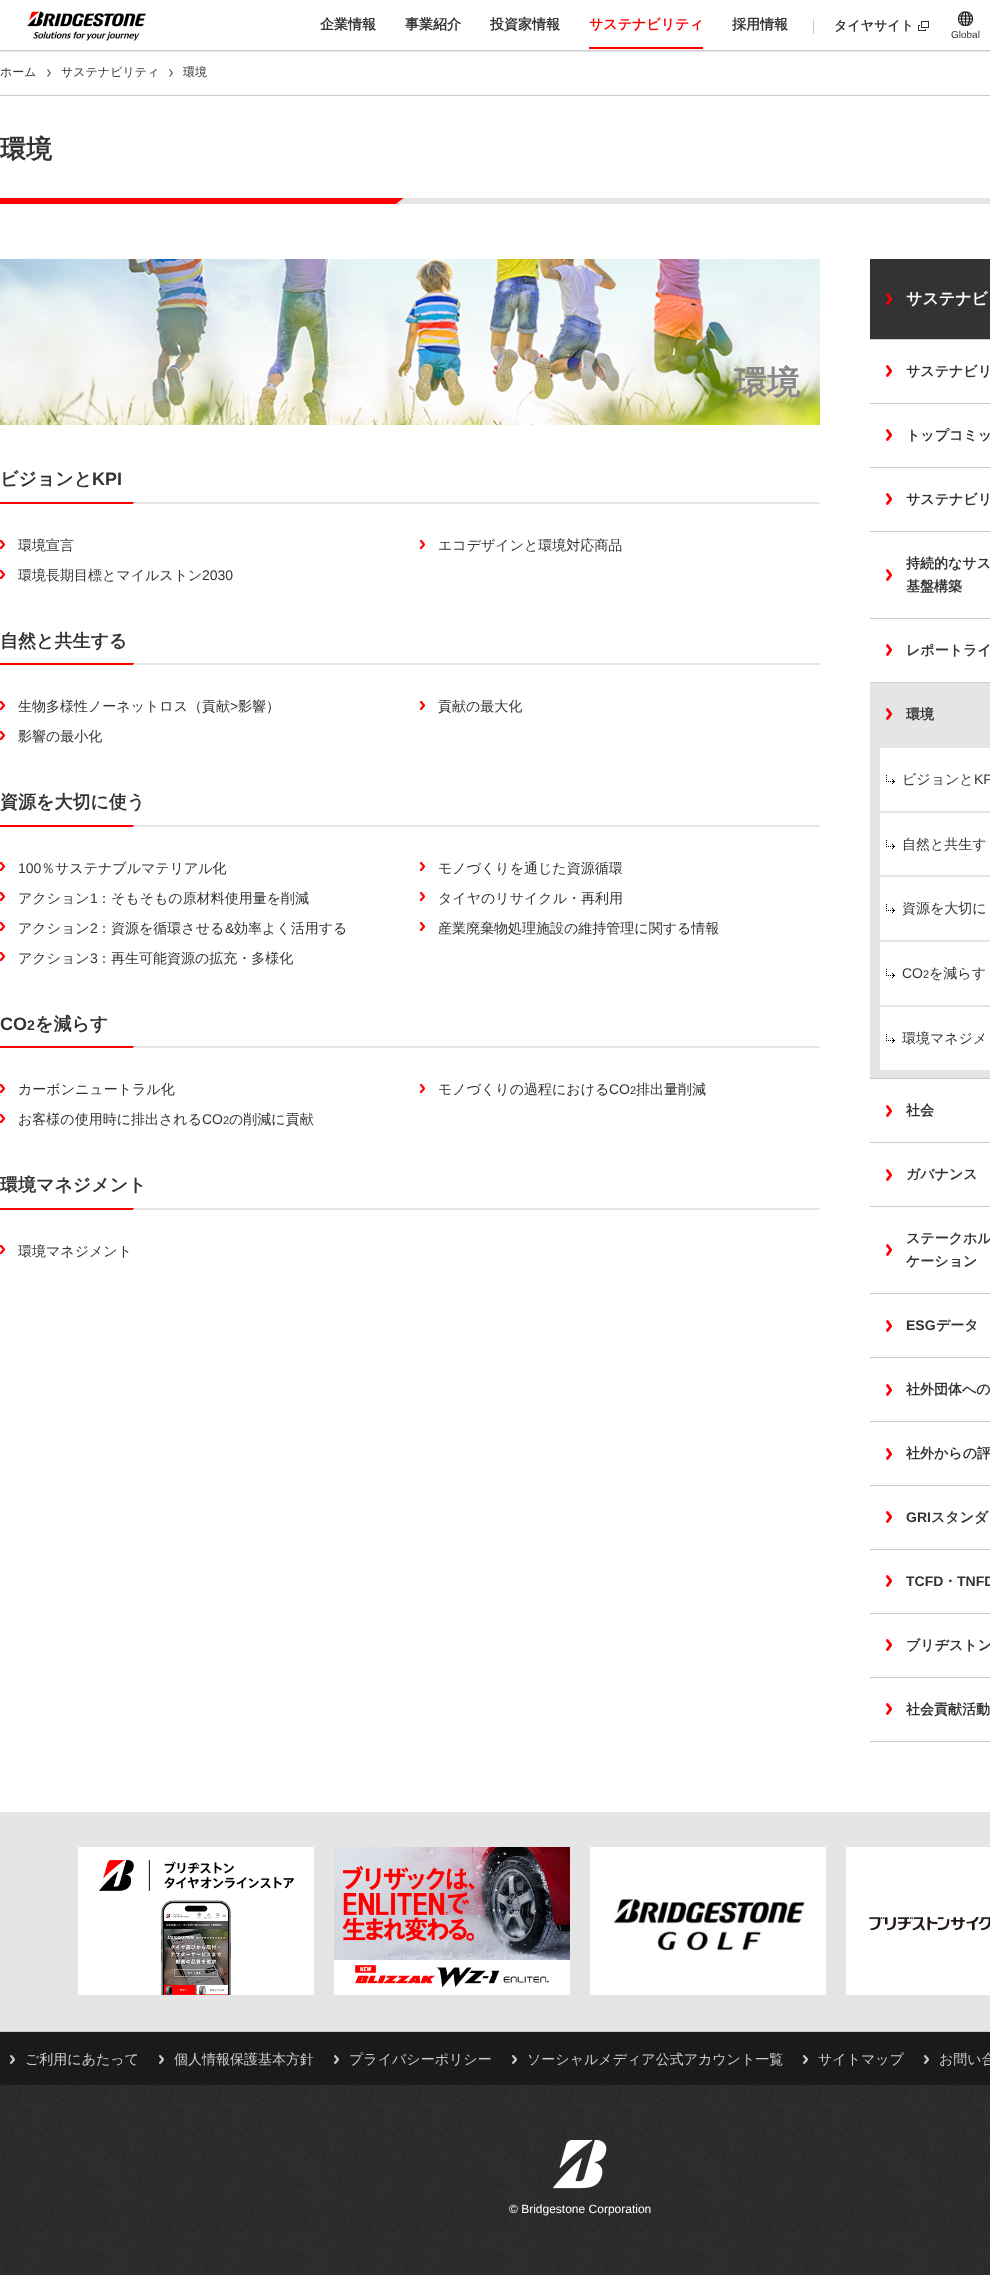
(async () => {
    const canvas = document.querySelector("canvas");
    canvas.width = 990;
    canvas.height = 2277;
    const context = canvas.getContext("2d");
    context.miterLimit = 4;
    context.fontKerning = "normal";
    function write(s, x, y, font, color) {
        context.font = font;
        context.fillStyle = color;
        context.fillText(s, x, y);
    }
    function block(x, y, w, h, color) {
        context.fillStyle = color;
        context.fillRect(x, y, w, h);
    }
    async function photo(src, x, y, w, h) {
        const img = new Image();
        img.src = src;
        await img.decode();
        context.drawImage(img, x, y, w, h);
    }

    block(0, 0, 990, 2277, "rgb(255, 255, 255)");
    await photo("media/1.png", 27, 11, 119, 30);
    write("企業情報", 320, 29, "bold 14px WenQuanYi Zen Hei", "rgb(51, 51, 51)");
    write("事業紹介", 405, 29, "bold 14px WenQuanYi Zen Hei", "rgb(51, 51, 51)");
    write("投資家情報", 490, 29, "bold 14px WenQuanYi Zen Hei", "rgb(51, 51, 51)");
    write("サステナビリティ", 589, 29, "bold 14px WenQuanYi Zen Hei", "rgb(252, 0, 0)");
    block(589, 47, 114, 2, "rgb(252, 0, 0)");
    write("採用情報", 732, 29, "bold 14px WenQuanYi Zen Hei", "rgb(51, 51, 51)");
    block(813, 19, 1, 15, "rgb(204, 204, 204)");
    await photo("media/2.png", 918, 21, 11, 10);
    write("タイヤサイト", 834, 30, "bold 13px WenQuanYi Zen Hei", "rgb(51, 51, 51)");
    await photo("media/3.png", 958, 11, 15, 15);
    write("Global", 951, 38, "10px Liberation Sans", "rgb(51, 51, 51)");
    block(0, 50, 990, 1, "rgb(204, 204, 204)");
    block(0, 51, 990, 1, "rgb(229, 229, 229)");
    block(0, 95, 990, 1, "rgb(204, 204, 204)");
    write("ホーム", 0, 76, "500 12px WenQuanYi Zen Hei", "rgb(51, 51, 51)");
    await photo("media/4.png", 47, 69, 4, 8);
    write("サステナビリティ", 61, 76, "500 12px WenQuanYi Zen Hei", "rgb(51, 51, 51)");
    await photo("media/4.png", 169, 69, 4, 8);
    write("環境", 183, 76, "500 12px WenQuanYi Zen Hei", "rgb(51, 51, 51)");
    await photo("media/5.png", 0, 198, 990, 6);
    write("環境", 0, 158, "bold 26px WenQuanYi Zen Hei", "rgb(51, 51, 51)");
    await photo("media/6.png", 0, 259, 820, 166);
    write("環境", 734, 394, "bold 33px WenQuanYi Zen Hei", "rgb(136, 136, 136)");
    await photo("media/7.png", 0, 502, 820, 2);
    write("ビジョンと", 0, 485, "bold 18px WenQuanYi Zen Hei", "rgb(51, 51, 51)");
    write("KPI", 92, 485, "bold 18px Liberation Sans", "rgb(51, 51, 51)");
    await photo("media/8.png", 0, 540, 5, 9);
    write("環境宣言", 18, 550, "500 14px WenQuanYi Zen Hei", "rgb(51, 51, 51)");
    await photo("media/8.png", 0, 570, 5, 9);
    write("環境長期目標とマイルストン", 18, 580, "500 14px WenQuanYi Zen Hei", "rgb(51, 51, 51)");
    write("2030", 202, 580, "14px Liberation Sans", "rgb(51, 51, 51)");
    await photo("media/8.png", 420, 540, 5, 9);
    write("エコデザインと環境対応商品", 438, 550, "500 14px WenQuanYi Zen Hei", "rgb(51, 51, 51)");
    await photo("media/7.png", 0, 663, 820, 2);
    write("自然と共生する", 0, 647, "bold 18px WenQuanYi Zen Hei", "rgb(51, 51, 51)");
    await photo("media/8.png", 0, 701, 5, 9);
    write("生物多様性ノーネットロス（貢献", 18, 711, "500 14px WenQuanYi Zen Hei", "rgb(51, 51, 51)");
    write(">", 230, 711, "14px Liberation Sans", "rgb(51, 51, 51)");
    write("影響）", 238, 711, "500 14px WenQuanYi Zen Hei", "rgb(51, 51, 51)");
    await photo("media/8.png", 0, 731, 5, 9);
    write("影響の最小化", 18, 741, "500 14px WenQuanYi Zen Hei", "rgb(51, 51, 51)");
    await photo("media/8.png", 420, 701, 5, 9);
    write("貢献の最大化", 438, 711, "500 14px WenQuanYi Zen Hei", "rgb(51, 51, 51)");
    await photo("media/7.png", 0, 825, 820, 2);
    write("資源を大切に使う", 0, 808, "bold 18px WenQuanYi Zen Hei", "rgb(51, 51, 51)");
    await photo("media/8.png", 0, 862, 5, 9);
    write("100", 18, 873, "14px Liberation Sans", "rgb(51, 51, 51)");
    write("％サステナブルマテリアル化", 41, 873, "500 14px WenQuanYi Zen Hei", "rgb(51, 51, 51)");
    await photo("media/8.png", 0, 892, 5, 9);
    write("アクション", 18, 903, "500 14px WenQuanYi Zen Hei", "rgb(51, 51, 51)");
    write("1", 90, 903, "14px Liberation Sans", "rgb(51, 51, 51)");
    write("：そもそもの原材料使用量を削減", 97, 903, "500 14px WenQuanYi Zen Hei", "rgb(51, 51, 51)");
    await photo("media/8.png", 0, 922, 5, 9);
    write("アクション", 18, 933, "500 14px WenQuanYi Zen Hei", "rgb(51, 51, 51)");
    write("2", 90, 933, "14px Liberation Sans", "rgb(51, 51, 51)");
    write("：資源を循環させる", 97, 933, "500 14px WenQuanYi Zen Hei", "rgb(51, 51, 51)");
    write("&", 225, 933, "14px Liberation Sans", "rgb(51, 51, 51)");
    write("効率よく活用する", 234, 933, "500 14px WenQuanYi Zen Hei", "rgb(51, 51, 51)");
    await photo("media/8.png", 0, 952, 5, 9);
    write("アクション", 18, 963, "500 14px WenQuanYi Zen Hei", "rgb(51, 51, 51)");
    write("3", 90, 963, "14px Liberation Sans", "rgb(51, 51, 51)");
    write("：再生可能資源の拡充・多様化", 97, 963, "500 14px WenQuanYi Zen Hei", "rgb(51, 51, 51)");
    await photo("media/8.png", 420, 862, 5, 9);
    write("モノづくりを通じた資源循環", 438, 873, "500 14px WenQuanYi Zen Hei", "rgb(51, 51, 51)");
    await photo("media/8.png", 420, 892, 5, 9);
    write("タイヤのリサイクル・再利用", 438, 903, "500 14px WenQuanYi Zen Hei", "rgb(51, 51, 51)");
    await photo("media/8.png", 420, 922, 5, 9);
    write("産業廃棄物処理施設の維持管理に関する情報", 438, 933, "500 14px WenQuanYi Zen Hei", "rgb(51, 51, 51)");
    await photo("media/7.png", 0, 1046, 820, 2);
    write("CO", 0, 1030, "bold 18px Liberation Sans", "rgb(51, 51, 51)");
    write("2", 27, 1030, "bold 14px Liberation Sans", "rgb(51, 51, 51)");
    write("を減らす", 35, 1030, "bold 18px WenQuanYi Zen Hei", "rgb(51, 51, 51)");
    await photo("media/8.png", 0, 1084, 5, 9);
    write("カーボンニュートラル化", 18, 1094, "500 14px WenQuanYi Zen Hei", "rgb(51, 51, 51)");
    await photo("media/8.png", 0, 1114, 5, 9);
    write("お客様の使用時に排出される", 18, 1124, "500 14px WenQuanYi Zen Hei", "rgb(51, 51, 51)");
    write("CO", 202, 1124, "14px Liberation Sans", "rgb(51, 51, 51)");
    write("2", 223, 1124, "11px Liberation Sans", "rgb(51, 51, 51)");
    write("の削減に貢献", 229, 1124, "500 14px WenQuanYi Zen Hei", "rgb(51, 51, 51)");
    await photo("media/8.png", 420, 1084, 5, 9);
    write("モノづくりの過程における", 438, 1094, "500 14px WenQuanYi Zen Hei", "rgb(51, 51, 51)");
    write("CO", 609, 1094, "14px Liberation Sans", "rgb(51, 51, 51)");
    write("2", 630, 1094, "11px Liberation Sans", "rgb(51, 51, 51)");
    write("排出量削減", 636, 1094, "500 14px WenQuanYi Zen Hei", "rgb(51, 51, 51)");
    await photo("media/7.png", 0, 1208, 820, 2);
    write("環境マネジメント", 0, 1191, "bold 18px WenQuanYi Zen Hei", "rgb(51, 51, 51)");
    await photo("media/8.png", 0, 1245, 5, 9);
    write("環境マネジメント", 18, 1256, "500 14px WenQuanYi Zen Hei", "rgb(51, 51, 51)");
    block(870, 259, 120, 80, "rgb(51, 51, 51)");
    await photo("media/9.png", 886, 293, 6, 12);
    write("サステナビ", 906, 304, "bold 16px WenQuanYi Zen Hei", "rgb(255, 255, 255)");
    block(870, 1741, 120, 1, "rgb(204, 204, 204)");
    await photo("media/10.png", 886, 365, 6, 12);
    block(870, 339, 120, 1, "rgb(204, 204, 204)");
    write("サステナビリ", 906, 376, "bold 14px WenQuanYi Zen Hei", "rgb(51, 51, 51)");
    await photo("media/10.png", 886, 429, 6, 12);
    block(870, 403, 120, 1, "rgb(204, 204, 204)");
    write("トップコミッ", 906, 440, "bold 14px WenQuanYi Zen Hei", "rgb(51, 51, 51)");
    await photo("media/10.png", 886, 493, 6, 12);
    block(870, 467, 120, 1, "rgb(204, 204, 204)");
    write("サステナビリ", 906, 504, "bold 14px WenQuanYi Zen Hei", "rgb(51, 51, 51)");
    await photo("media/10.png", 886, 569, 6, 12);
    block(870, 531, 120, 1, "rgb(204, 204, 204)");
    write("持続的なサス", 906, 568, "bold 14px WenQuanYi Zen Hei", "rgb(51, 51, 51)");
    write("基盤構築", 906, 591, "bold 14px WenQuanYi Zen Hei", "rgb(51, 51, 51)");
    await photo("media/10.png", 886, 644, 6, 12);
    block(870, 618, 120, 1, "rgb(204, 204, 204)");
    write("レポートライ", 906, 655, "bold 14px WenQuanYi Zen Hei", "rgb(51, 51, 51)");
    block(870, 683, 120, 395, "rgb(229, 229, 229)");
    await photo("media/11.png", 886, 708, 6, 12);
    block(870, 682, 120, 1, "rgb(204, 204, 204)");
    write("環境", 906, 719, "bold 14px WenQuanYi Zen Hei", "rgb(51, 51, 51)");
    block(880, 748, 110, 63, "rgb(255, 255, 255)");
    await photo("media/12.png", 886, 775, 9, 9);
    write("ビジョンと", 902, 784, "500 14px WenQuanYi Zen Hei", "rgb(51, 51, 51)");
    write("KP", 974, 784, "14px Liberation Sans", "rgb(51, 51, 51)");
    block(880, 813, 110, 62, "rgb(255, 255, 255)");
    await photo("media/12.png", 886, 840, 9, 9);
    write("自然と共生す", 902, 849, "500 14px WenQuanYi Zen Hei", "rgb(51, 51, 51)");
    block(880, 877, 110, 63, "rgb(255, 255, 255)");
    await photo("media/12.png", 886, 904, 9, 9);
    write("資源を大切に", 902, 913, "500 14px WenQuanYi Zen Hei", "rgb(51, 51, 51)");
    block(880, 942, 110, 63, "rgb(255, 255, 255)");
    await photo("media/12.png", 886, 969, 9, 9);
    write("CO", 902, 978, "14px Liberation Sans", "rgb(51, 51, 51)");
    write("2", 923, 978, "11px Liberation Sans", "rgb(51, 51, 51)");
    write("を減らす", 929, 978, "500 14px WenQuanYi Zen Hei", "rgb(51, 51, 51)");
    block(880, 1007, 110, 63, "rgb(255, 255, 255)");
    await photo("media/12.png", 886, 1034, 9, 9);
    write("環境マネジメ", 902, 1043, "500 14px WenQuanYi Zen Hei", "rgb(51, 51, 51)");
    await photo("media/10.png", 886, 1105, 6, 12);
    block(870, 1078, 120, 1, "rgb(204, 204, 204)");
    write("社会", 906, 1115, "bold 14px WenQuanYi Zen Hei", "rgb(51, 51, 51)");
    await photo("media/10.png", 886, 1169, 6, 12);
    block(870, 1142, 120, 1, "rgb(204, 204, 204)");
    write("ガバナンス", 906, 1179, "bold 14px WenQuanYi Zen Hei", "rgb(51, 51, 51)");
    await photo("media/10.png", 886, 1244, 6, 12);
    block(870, 1206, 120, 1, "rgb(204, 204, 204)");
    write("ステークホル", 906, 1243, "bold 14px WenQuanYi Zen Hei", "rgb(51, 51, 51)");
    write("ケーション", 906, 1266, "bold 14px WenQuanYi Zen Hei", "rgb(51, 51, 51)");
    await photo("media/10.png", 886, 1320, 6, 12);
    block(870, 1293, 120, 1, "rgb(204, 204, 204)");
    write("ESG", 906, 1330, "bold 14px Liberation Sans", "rgb(51, 51, 51)");
    write("データ", 936, 1330, "bold 14px WenQuanYi Zen Hei", "rgb(51, 51, 51)");
    await photo("media/10.png", 886, 1384, 6, 12);
    block(870, 1357, 120, 1, "rgb(204, 204, 204)");
    write("社外団体への", 906, 1394, "bold 14px WenQuanYi Zen Hei", "rgb(51, 51, 51)");
    await photo("media/10.png", 886, 1448, 6, 12);
    block(870, 1421, 120, 1, "rgb(204, 204, 204)");
    write("社外からの評", 906, 1458, "bold 14px WenQuanYi Zen Hei", "rgb(51, 51, 51)");
    await photo("media/10.png", 886, 1511, 6, 12);
    block(870, 1485, 120, 1, "rgb(204, 204, 204)");
    write("GRI", 906, 1522, "bold 14px Liberation Sans", "rgb(51, 51, 51)");
    write("スタンダ", 931, 1522, "bold 14px WenQuanYi Zen Hei", "rgb(51, 51, 51)");
    await photo("media/10.png", 886, 1575, 6, 12);
    block(870, 1549, 120, 1, "rgb(204, 204, 204)");
    write("TCFD", 906, 1586, "bold 14px Liberation Sans", "rgb(51, 51, 51)");
    write("・", 943, 1586, "bold 14px WenQuanYi Zen Hei", "rgb(51, 51, 51)");
    write("TNFD", 957, 1586, "bold 14px Liberation Sans", "rgb(51, 51, 51)");
    await photo("media/10.png", 886, 1639, 6, 12);
    block(870, 1613, 120, 1, "rgb(204, 204, 204)");
    write("ブリヂストン", 906, 1650, "bold 14px WenQuanYi Zen Hei", "rgb(51, 51, 51)");
    await photo("media/10.png", 886, 1703, 6, 12);
    block(870, 1677, 120, 1, "rgb(204, 204, 204)");
    write("社会貢献活動", 906, 1714, "bold 14px WenQuanYi Zen Hei", "rgb(51, 51, 51)");
    block(0, 1812, 990, 219, "rgb(229, 229, 229)");
    block(0, 2031, 990, 1, "rgb(204, 204, 204)");
    await photo("media/13.png", 78, 1847, 236, 148);
    await photo("media/14.png", 334, 1847, 236, 148);
    await photo("media/15.png", 590, 1847, 236, 148);
    await photo("media/16.png", 846, 1847, 144, 148);
    await photo("media/17.png", 0, 2085, 990, 190);
    await photo("media/18.png", 0, 2032, 990, 53);
    await photo("media/19.png", 10, 2055, 5, 9);
    write("ご利用にあたって", 25, 2064, "500 14px WenQuanYi Zen Hei", "rgb(204, 204, 204)");
    await photo("media/20.png", 159, 2055, 5, 9);
    write("個人情報保護基本方針", 174, 2064, "500 14px WenQuanYi Zen Hei", "rgb(204, 204, 204)");
    await photo("media/21.png", 334, 2055, 5, 9);
    write("プライバシーポリシー", 349, 2064, "500 14px WenQuanYi Zen Hei", "rgb(204, 204, 204)");
    await photo("media/22.png", 512, 2055, 5, 9);
    write("ソーシャルメディア公式アカウント一覧", 527, 2064, "500 14px WenQuanYi Zen Hei", "rgb(204, 204, 204)");
    await photo("media/23.png", 803, 2055, 5, 9);
    write("サイトマップ", 818, 2064, "500 14px WenQuanYi Zen Hei", "rgb(204, 204, 204)");
    await photo("media/24.png", 924, 2055, 5, 9);
    write("お問い合", 939, 2064, "500 14px WenQuanYi Zen Hei", "rgb(204, 204, 204)");
    await photo("media/25.png", 553, 2140, 54, 49);
    write("© Bridgestone Corporation", 509, 2213, "12px Liberation Sans", "rgb(255, 255, 255)");
})();
